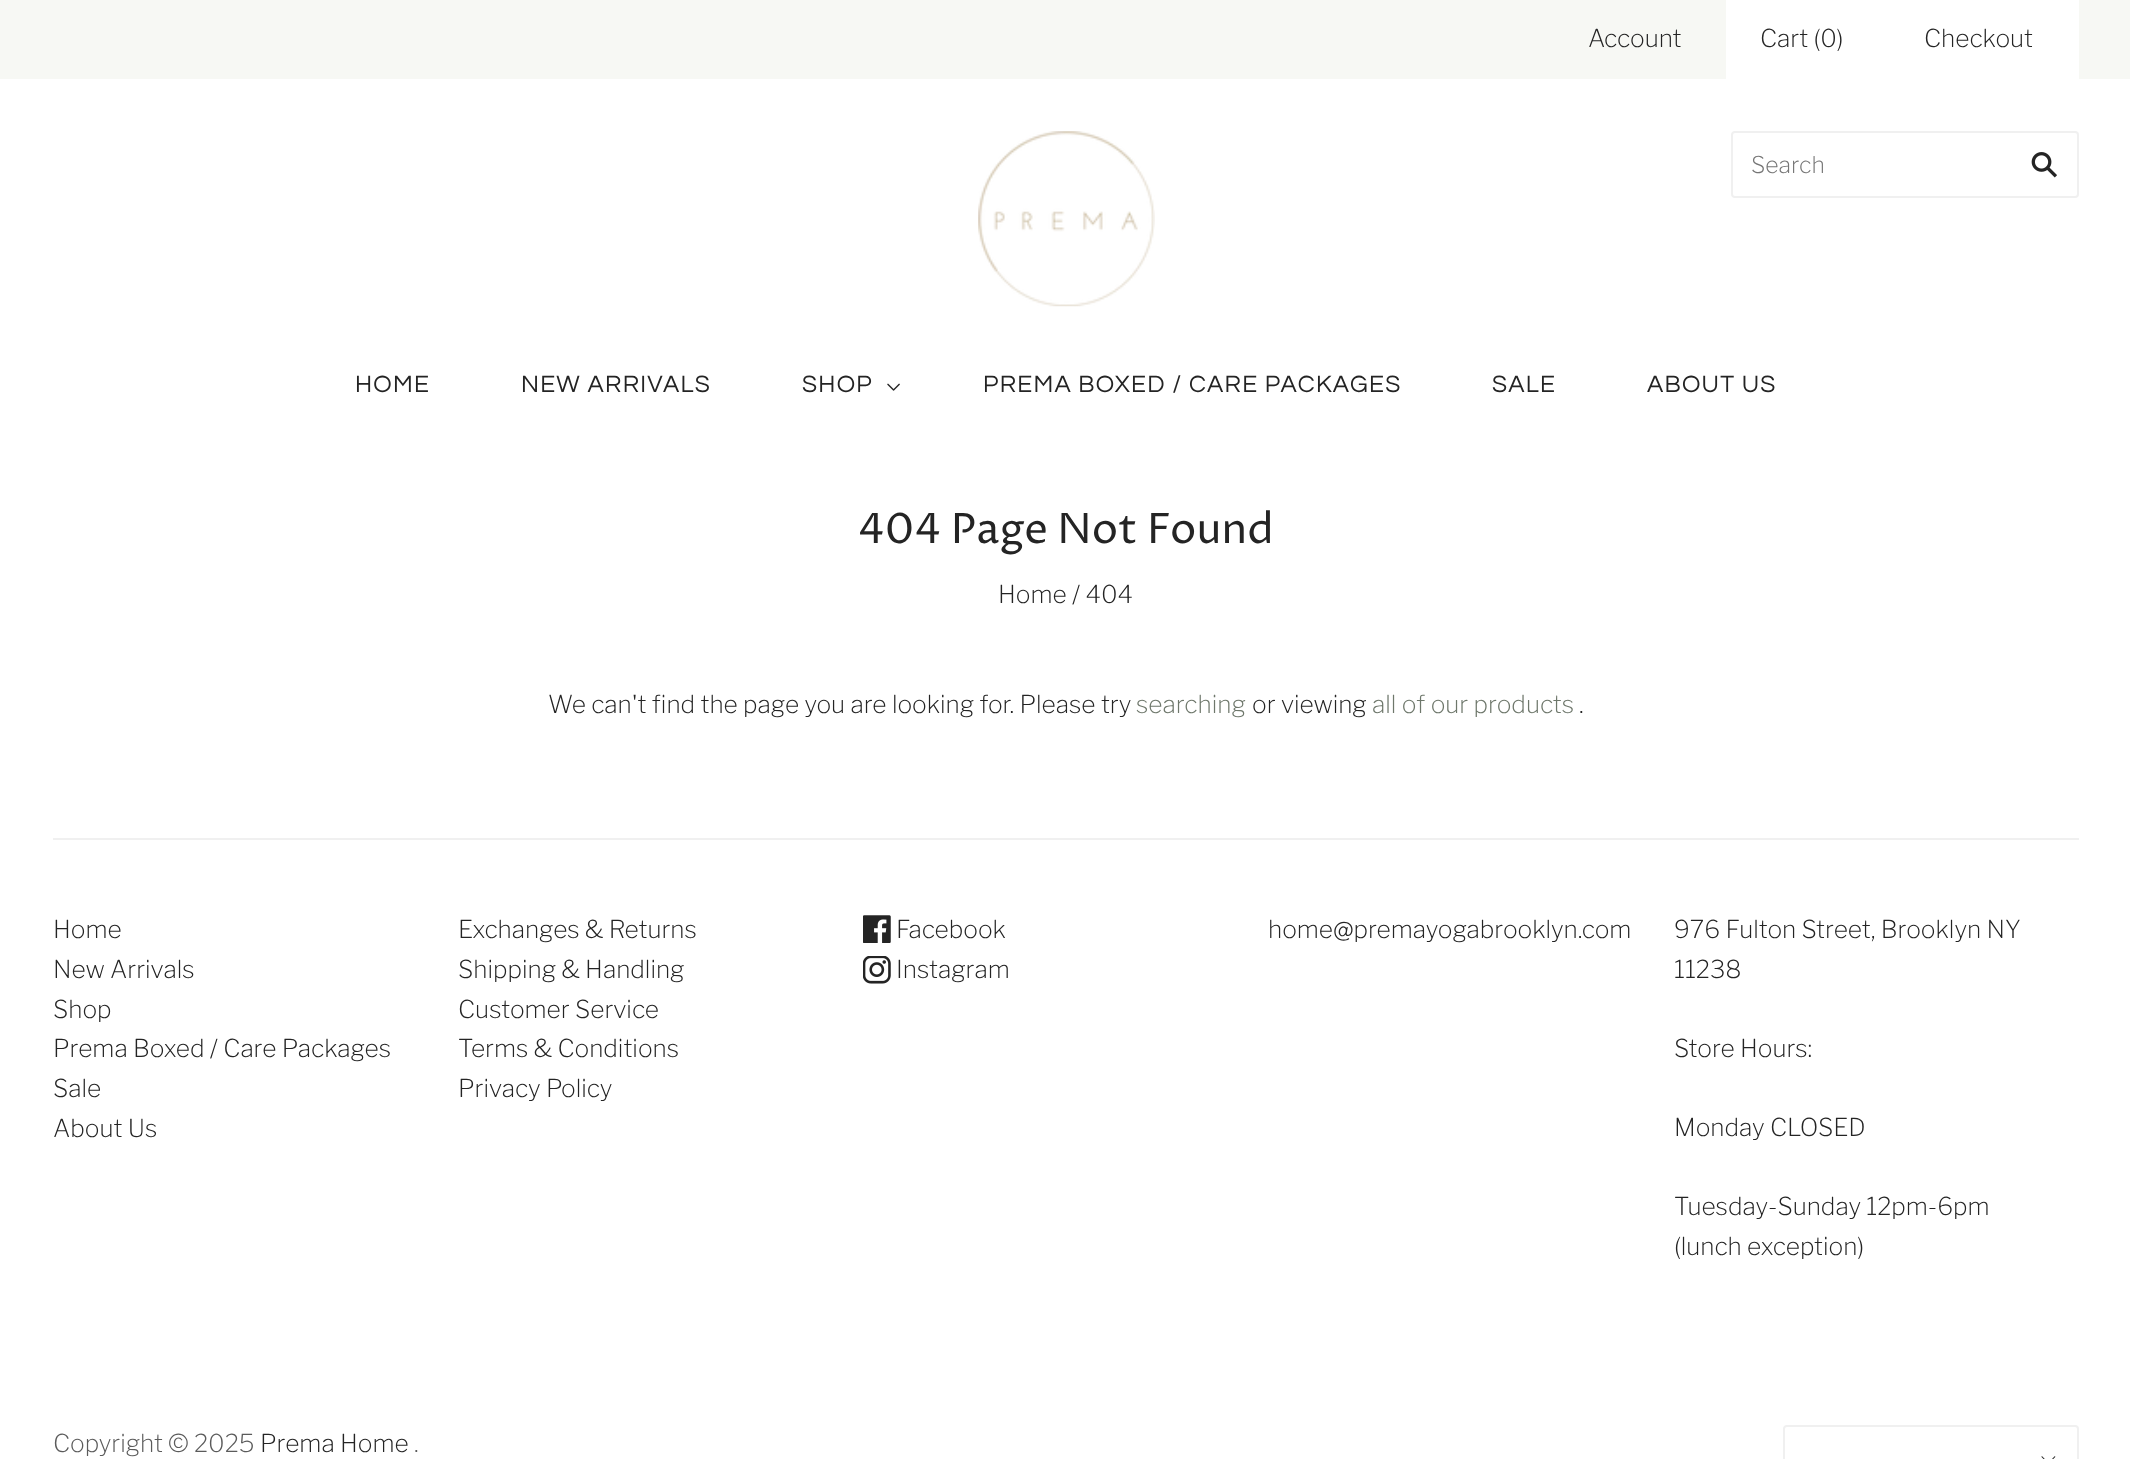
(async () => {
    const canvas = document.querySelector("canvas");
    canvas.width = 2130;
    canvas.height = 1459;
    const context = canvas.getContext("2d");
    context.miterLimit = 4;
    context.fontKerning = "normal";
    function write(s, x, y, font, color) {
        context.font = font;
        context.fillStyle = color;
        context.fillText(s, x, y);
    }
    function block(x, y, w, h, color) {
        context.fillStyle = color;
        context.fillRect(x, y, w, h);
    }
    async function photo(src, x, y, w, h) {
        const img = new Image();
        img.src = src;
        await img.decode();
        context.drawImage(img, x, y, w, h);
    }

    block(0, 0, 2130, 1459, "rgb(255, 255, 255)");
    block(0, 0, 2130, 79, "rgb(247, 248, 244)");
    write("Account", 1588, 47, "200 24.5px Libre Franklin", "rgb(36, 36, 36)");
    block(1726, 0, 353, 79, "rgb(255, 255, 255)");
    write("Cart (0)", 1760, 47, "200 24.5px Libre Franklin", "rgb(36, 36, 36)");
    write("Checkout", 1924, 47, "200 24.5px Libre Franklin", "rgb(36, 36, 36)");
    await photo("media/1.png", 978, 131, 177, 176);
    context.beginPath();
    context.roundRect(1732, 132, 346, 65, 3);
    context.strokeStyle = "rgb(240, 240, 240)";
    context.lineWidth = 2;
    context.stroke();
    write("Search", 1751, 173, "200 23px Libre Franklin", "rgb(117, 117, 117)");
    await photo("media/2.png", 2031, 152, 26, 26);
    context.letterSpacing = "1.25px";
    write("HOME", 355, 392, "24.5px Questrial", "rgb(36, 36, 36)");
    write("NEW ARRIVALS", 521, 392, "24.5px Questrial", "rgb(36, 36, 36)");
    write("SHOP", 802, 392, "24.5px Questrial", "rgb(36, 36, 36)");
    await photo("media/3.png", 887, 383, 13, 8);
    write("PREMA BOXED / CARE PACKAGES", 983, 392, "24.5px Questrial", "rgb(36, 36, 36)");
    write("SALE", 1492, 392, "24.5px Questrial", "rgb(36, 36, 36)");
    write("ABOUT US", 1647, 392, "24.5px Questrial", "rgb(36, 36, 36)");
    context.letterSpacing = "0px";
    write("404 Page Not Found", 858, 543, "42px Proza Libre", "rgb(36, 36, 36)");
    write("Home / 404", 998, 603, "200 24.5px Libre Franklin", "rgb(36, 36, 36)");
    write("We can't find the page you are looking for. Please try", 548, 713, "200 24.5px Libre Franklin", "rgb(36, 36, 36)");
    write("searching", 1136, 713, "200 24.5px Libre Franklin", "rgb(110, 119, 107)");
    write("or viewing", 1252, 713, "200 24.5px Libre Franklin", "rgb(36, 36, 36)");
    write("all of our products", 1372, 713, "200 24.5px Libre Franklin", "rgb(110, 119, 107)");
    write(".", 1579, 713, "200 24.5px Libre Franklin", "rgb(36, 36, 36)");
    block(53, 838, 2026, 2, "rgb(240, 240, 240)");
    write("Home", 53, 938, "200 24.5px Libre Franklin", "rgb(36, 36, 36)");
    write("New Arrivals", 53, 978, "200 24.5px Libre Franklin", "rgb(36, 36, 36)");
    write("Shop", 53, 1018, "200 24.5px Libre Franklin", "rgb(36, 36, 36)");
    write("Prema Boxed / Care Packages", 53, 1057, "200 24.5px Libre Franklin", "rgb(36, 36, 36)");
    write("Sale", 53, 1097, "200 24.5px Libre Franklin", "rgb(36, 36, 36)");
    write("About Us", 53, 1137, "200 24.5px Libre Franklin", "rgb(36, 36, 36)");
    write("Exchanges & Returns", 458, 938, "200 24.5px Libre Franklin", "rgb(36, 36, 36)");
    write("Shipping & Handling", 458, 978, "200 24.5px Libre Franklin", "rgb(36, 36, 36)");
    write("Customer Service", 458, 1018, "200 24.5px Libre Franklin", "rgb(36, 36, 36)");
    write("Terms & Conditions", 458, 1057, "200 24.5px Libre Franklin", "rgb(36, 36, 36)");
    write("Privacy Policy", 458, 1097, "200 24.5px Libre Franklin", "rgb(36, 36, 36)");
    await photo("media/4.png", 863, 915, 28, 28);
    write("Facebook", 896, 938, "200 24.5px Libre Franklin", "rgb(36, 36, 36)");
    await photo("media/5.png", 863, 956, 28, 28);
    write("Instagram", 896, 978, "200 24.5px Libre Franklin", "rgb(36, 36, 36)");
    write("home@premayogabrooklyn.com", 1268, 938, "200 24.5px Libre Franklin", "rgb(36, 36, 36)");
    write("976 Fulton Street, Brooklyn NY", 1674, 938, "200 24.5px Libre Franklin", "rgb(36, 36, 36)");
    write("11238", 1674, 978, "200 24.5px Libre Franklin", "rgb(36, 36, 36)");
    write("Store Hours:", 1674, 1057, "200 24.5px Libre Franklin", "rgb(36, 36, 36)");
    write("Monday CLOSED", 1674, 1136, "200 24.5px Libre Franklin", "rgb(36, 36, 36)");
    write("Tuesday-Sunday 12pm-6pm", 1674, 1215, "200 24.5px Libre Franklin", "rgb(36, 36, 36)");
    write("(lunch exception)", 1674, 1255, "200 24.5px Libre Franklin", "rgb(36, 36, 36)");
    write("Copyright © 2025", 53, 1452, "200 24.5px Libre Franklin", "rgb(91, 91, 91)");
    write("Prema Home", 260, 1452, "200 24.5px Libre Franklin", "rgb(36, 36, 36)");
    write(".", 414, 1452, "200 24.5px Libre Franklin", "rgb(91, 91, 91)");
    context.beginPath();
    context.roundRect(1784, 1426, 294, 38, 3);
    context.stroke();
    await photo("media/6.png", 2041, 1456, 15, 3);
})();
